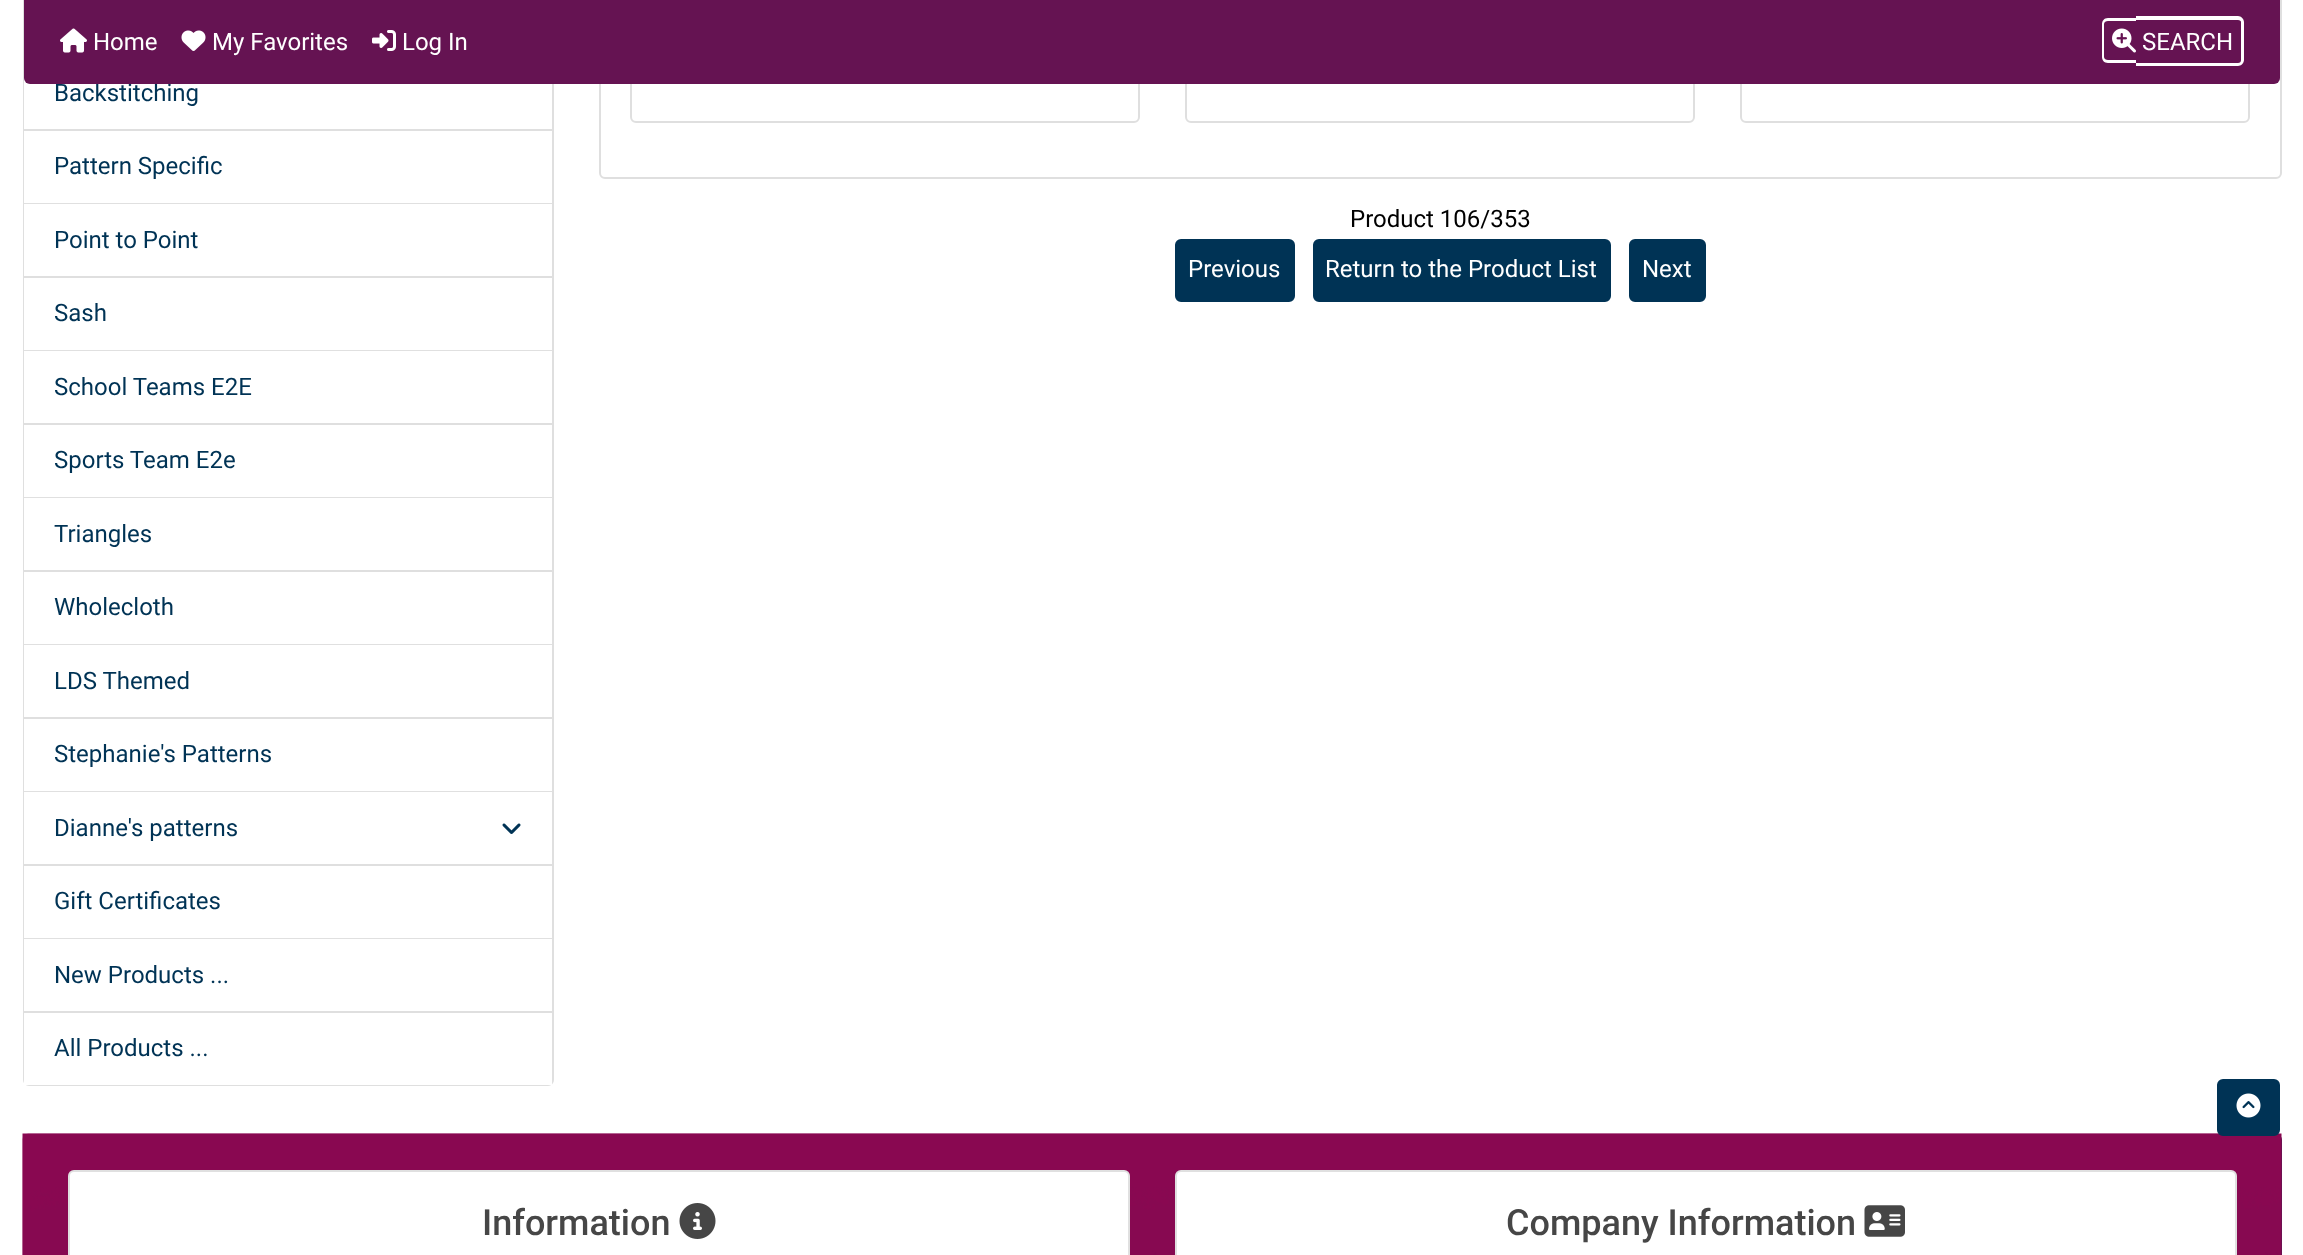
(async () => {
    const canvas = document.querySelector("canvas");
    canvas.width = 2303;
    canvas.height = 1255;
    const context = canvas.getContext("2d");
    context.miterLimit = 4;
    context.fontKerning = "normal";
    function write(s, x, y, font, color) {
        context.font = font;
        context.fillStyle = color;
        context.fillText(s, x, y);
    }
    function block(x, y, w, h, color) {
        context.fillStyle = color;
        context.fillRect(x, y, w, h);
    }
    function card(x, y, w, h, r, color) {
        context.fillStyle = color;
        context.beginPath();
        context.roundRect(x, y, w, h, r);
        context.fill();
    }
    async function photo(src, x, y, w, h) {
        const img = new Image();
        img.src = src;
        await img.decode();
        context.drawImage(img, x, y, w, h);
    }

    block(0, 0, 2303, 1255, "rgb(255, 255, 255)");
    context.beginPath();
    context.roundRect(24, -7, 529, 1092, 5);
    context.strokeStyle = "rgb(223, 223, 223)";
    context.lineWidth = 2;
    context.stroke();
    block(24, 78, 1, 51, "rgb(255, 255, 255)");
    write("Backstitching", 54, 101, "24px Roboto", "rgb(0, 51, 85)");
    context.beginPath();
    context.roundRect(600, -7, 1681, 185, 5);
    context.stroke();
    context.beginPath();
    context.roundRect(631, -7, 508, 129, 5);
    context.stroke();
    context.beginPath();
    context.roundRect(1186, -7, 508, 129, 5);
    context.stroke();
    context.beginPath();
    context.roundRect(1741, -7, 508, 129, 5);
    context.stroke();
    context.fillStyle = "rgb(101, 19, 82)";
    context.beginPath();
    context.roundRect(24, 0, 2256, 84, [0, 0, 6, 6]);
    context.fill();
    await photo("media/1.png", 60, 28, 27, 25);
    write("Home", 93, 50, "24px Roboto", "rgb(255, 255, 255)");
    await photo("media/2.png", 181, 30, 25, 21);
    write("My Favorites", 212, 50, "24px Roboto", "rgb(255, 255, 255)");
    await photo("media/3.png", 372, 30, 24, 21);
    write("Log In", 402, 50, "24px Roboto", "rgb(255, 255, 255)");
    context.beginPath();
    context.moveTo(2108, 18);
    context.lineTo(2136, 18);
    context.lineTo(2136, 63);
    context.lineTo(2108, 63);
    context.bezierCurveTo(2104, 63, 2102, 60, 2102, 57);
    context.lineTo(2102, 24);
    context.bezierCurveTo(2102, 21, 2104, 18, 2108, 18);
    context.closePath();
    context.moveTo(2108, 21);
    context.lineTo(2136, 21);
    context.lineTo(2136, 60);
    context.lineTo(2108, 60);
    context.bezierCurveTo(2106, 60, 2104, 59, 2104, 57);
    context.lineTo(2104, 24);
    context.bezierCurveTo(2104, 22, 2106, 21, 2108, 21);
    context.closePath();
    context.fill("evenodd");
    context.beginPath();
    context.moveTo(2136, 16);
    context.lineTo(2238, 16);
    context.bezierCurveTo(2241, 16, 2244, 19, 2244, 22);
    context.lineTo(2244, 60);
    context.bezierCurveTo(2244, 63, 2241, 66, 2238, 66);
    context.lineTo(2136, 66);
    context.closePath();
    context.moveTo(2136, 20);
    context.lineTo(2238, 20);
    context.bezierCurveTo(2240, 20, 2241, 21, 2241, 22);
    context.lineTo(2241, 60);
    context.bezierCurveTo(2241, 62, 2240, 63, 2238, 63);
    context.lineTo(2136, 63);
    context.closePath();
    context.fill("evenodd");
    await photo("media/4.png", 2112, 28, 24, 25);
    write("SEARCH", 2142, 50, "24px Roboto", "rgb(255, 255, 255)");
    block(24, 129, 528, 2, "rgb(223, 223, 223)");
    block(24, 131, 1, 145, "rgb(255, 255, 255)");
    block(24, 203, 528, 1, "rgba(0, 0, 0, 0.12)");
    write("Pattern Specific", 54, 174, "24px Roboto", "rgb(0, 51, 85)");
    block(24, 276, 528, 2, "rgb(223, 223, 223)");
    write("Point to Point", 54, 248, "24px Roboto", "rgb(0, 51, 85)");
    block(24, 278, 1, 145, "rgb(255, 255, 255)");
    block(24, 350, 528, 1, "rgba(0, 0, 0, 0.12)");
    write("Sash", 54, 321, "24px Roboto", "rgb(0, 51, 85)");
    block(24, 423, 528, 2, "rgb(223, 223, 223)");
    write("School Teams E2E", 54, 395, "24px Roboto", "rgb(0, 51, 85)");
    block(24, 425, 1, 145, "rgb(255, 255, 255)");
    block(24, 497, 528, 1, "rgba(0, 0, 0, 0.12)");
    write("Sports Team E2e", 54, 468, "24px Roboto", "rgb(0, 51, 85)");
    block(24, 570, 528, 2, "rgb(223, 223, 223)");
    write("Triangles", 54, 542, "24px Roboto", "rgb(0, 51, 85)");
    block(24, 572, 1, 145, "rgb(255, 255, 255)");
    block(24, 644, 528, 1, "rgba(0, 0, 0, 0.12)");
    write("Wholecloth", 54, 615, "24px Roboto", "rgb(0, 51, 85)");
    block(24, 717, 528, 2, "rgb(223, 223, 223)");
    write("LDS Themed", 54, 689, "24px Roboto", "rgb(0, 51, 85)");
    block(24, 719, 1, 145, "rgb(255, 255, 255)");
    block(24, 791, 528, 1, "rgba(0, 0, 0, 0.12)");
    write("Stephanie's Patterns", 54, 762, "24px Roboto", "rgb(0, 51, 85)");
    block(24, 864, 528, 2, "rgb(223, 223, 223)");
    write("Dianne's patterns", 54, 836, "24px Roboto", "rgb(0, 51, 85)");
    await photo("media/5.png", 502, 823, 19, 11);
    block(24, 866, 1, 145, "rgb(255, 255, 255)");
    block(24, 938, 528, 1, "rgba(0, 0, 0, 0.12)");
    write("Gift Certificates", 54, 909, "24px Roboto", "rgb(0, 51, 85)");
    block(24, 1011, 528, 2, "rgb(223, 223, 223)");
    write("New Products ...", 54, 983, "24px Roboto", "rgb(0, 51, 85)");
    block(24, 1013, 528, 72, "rgb(255, 255, 255)");
    write("All Products ...", 54, 1056, "24px Roboto", "rgb(0, 51, 85)");
    write("Product 106/353", 1350, 227, "24px Roboto", "rgb(0, 0, 0)");
    context.fillStyle = "rgb(0, 51, 85)";
    context.beginPath();
    context.roundRect(1176, 240, 118, 61, 5);
    context.fill();
    context.strokeStyle = "rgb(0, 51, 85)";
    context.stroke();
    write("Previous", 1188, 277, "24px Roboto", "rgb(255, 255, 255)");
    context.fillStyle = "rgb(0, 51, 85)";
    context.beginPath();
    context.roundRect(1314, 240, 296, 61, 5);
    context.fill();
    context.stroke();
    write("Return to the Product List", 1325, 277, "24px Roboto", "rgb(255, 255, 255)");
    context.fillStyle = "rgb(0, 51, 85)";
    context.beginPath();
    context.roundRect(1630, 240, 75, 61, 5);
    context.fill();
    context.stroke();
    write("Next", 1642, 277, "24px Roboto", "rgb(255, 255, 255)");
    await photo("media/7.png", 22, 1133, 2260, 122);
    card(23, 1134, 2259, 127, 6, "rgb(101, 19, 82)");
    await photo("media/8.png", 22, 1133, 2260, 122);
    context.fillStyle = "rgb(0, 51, 85)";
    context.beginPath();
    context.roundRect(2218, 1080, 61, 55, 5);
    context.fill();
    context.stroke();
    await photo("media/6.png", 2236, 1093, 25, 25);
    card(68, 1170, 1062, 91, 6, "rgb(255, 255, 255)");
    context.beginPath();
    context.roundRect(69, 1171, 1060, 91, 5);
    context.strokeStyle = "rgba(0, 0, 0, 0.12)";
    context.stroke();
    write("Information", 482, 1235, "500 36px Roboto", "rgb(70, 70, 70)");
    await photo("media/9.png", 679, 1203, 37, 36);
    card(1175, 1170, 1062, 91, 6, "rgb(255, 255, 255)");
    context.beginPath();
    context.roundRect(1176, 1171, 1060, 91, 5);
    context.stroke();
    write("Company Information", 1506, 1235, "500 36px Roboto", "rgb(70, 70, 70)");
    await photo("media/10.png", 1864, 1205, 41, 32);
})();
